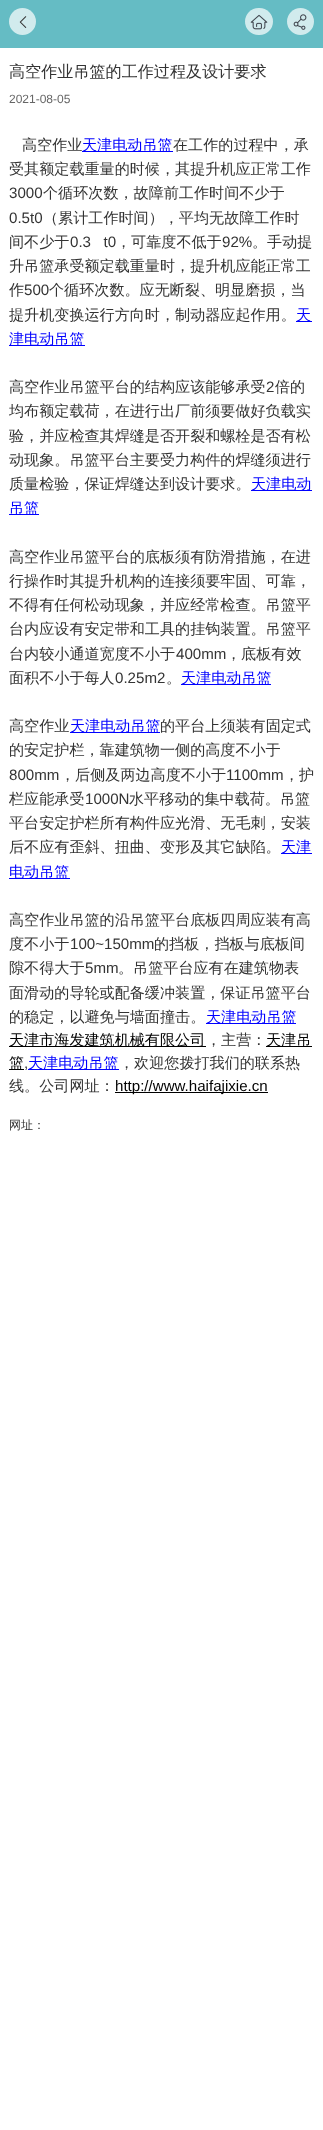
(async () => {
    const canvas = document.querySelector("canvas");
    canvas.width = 323;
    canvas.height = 2130;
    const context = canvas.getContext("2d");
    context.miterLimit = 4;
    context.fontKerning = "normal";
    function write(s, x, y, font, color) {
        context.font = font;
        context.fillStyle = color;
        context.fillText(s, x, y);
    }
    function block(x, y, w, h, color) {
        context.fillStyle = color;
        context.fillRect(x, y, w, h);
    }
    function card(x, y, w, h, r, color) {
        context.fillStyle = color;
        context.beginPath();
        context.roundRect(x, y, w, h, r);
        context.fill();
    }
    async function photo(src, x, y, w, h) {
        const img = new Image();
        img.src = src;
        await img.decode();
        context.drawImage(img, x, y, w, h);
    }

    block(0, 0, 323, 2130, "rgb(255, 255, 255)");
    block(0, 0, 323, 48, "rgb(101, 188, 196)");
    context.fillStyle = "rgb(209, 235, 237)";
    context.beginPath();
    context.arc(22.5, 21.5, 13.5, 0, Math.PI * 2);
    context.fill();
    await photo("media/1.png", 19, 16, 8, 12);
    card(245, 8, 28, 27, 13.5, "rgb(209, 235, 237)");
    await photo("media/2.png", 250, 14, 18, 16);
    context.beginPath();
    context.arc(300.5, 21.5, 13.5, 0, Math.PI * 2);
    context.fill();
    await photo("media/3.png", 293, 14, 14, 16);
    write("高空作业吊篮的工作过程及设计要求", 9, 77, "500 16.1px WenQuanYi Zen Hei", "rgb(51, 51, 51)");
    write("2021-08-05", 9, 103, "12px Liberation Sans", "rgb(102, 102, 102)");
    write("高空作业", 22, 150, "500 15.1px WenQuanYi Zen Hei", "rgb(51, 51, 51)");
    block(82, 151, 91, 1, "rgb(0, 0, 255)");
    write("天津电动吊篮", 82, 150, "500 15.1px WenQuanYi Zen Hei", "rgb(0, 0, 255)");
    write("在工作的过程中，承", 173, 150, "500 15.1px WenQuanYi Zen Hei", "rgb(51, 51, 51)");
    write("受其额定载重量的时候，其提升机应正常工作", 9, 174, "500 15.1px WenQuanYi Zen Hei", "rgb(51, 51, 51)");
    write("3000", 9, 198, "15.1px Liberation Sans", "rgb(51, 51, 51)");
    write("个循环次数，故障前工作时间不少于", 43, 198, "500 15.1px WenQuanYi Zen Hei", "rgb(51, 51, 51)");
    write("0.5t0", 9, 223, "15.1px Liberation Sans", "rgb(51, 51, 51)");
    write("（累计工作时间），平均无故障工作时", 43, 223, "500 15.1px WenQuanYi Zen Hei", "rgb(51, 51, 51)");
    write("间不少于", 9, 247, "500 15.1px WenQuanYi Zen Hei", "rgb(51, 51, 51)");
    write("0.3   t0", 70, 247, "15.1px Liberation Sans", "rgb(51, 51, 51)");
    write("，可靠度不低于", 116, 247, "500 15.1px WenQuanYi Zen Hei", "rgb(51, 51, 51)");
    write("92%", 222, 247, "15.1px Liberation Sans", "rgb(51, 51, 51)");
    write("。手动提", 252, 247, "500 15.1px WenQuanYi Zen Hei", "rgb(51, 51, 51)");
    write("升吊篮承受额定载重量时，提升机应能正常工", 9, 271, "500 15.1px WenQuanYi Zen Hei", "rgb(51, 51, 51)");
    write("作", 9, 295, "500 15.1px WenQuanYi Zen Hei", "rgb(51, 51, 51)");
    write("500", 24, 295, "15.1px Liberation Sans", "rgb(51, 51, 51)");
    write("个循环次数。应无断裂、明显磨损，当", 49, 295, "500 15.1px WenQuanYi Zen Hei", "rgb(51, 51, 51)");
    write("提升机变换运行方向时，制动器应起作用。", 9, 320, "500 15.1px WenQuanYi Zen Hei", "rgb(51, 51, 51)");
    block(296, 321, 16, 1, "rgb(0, 0, 255)");
    write("天", 296, 320, "500 15.1px WenQuanYi Zen Hei", "rgb(0, 0, 255)");
    block(9, 345, 76, 1, "rgb(0, 0, 255)");
    write("津电动吊篮", 9, 344, "500 15.1px WenQuanYi Zen Hei", "rgb(0, 0, 255)");
    write("高空作业吊篮平台的结构应该能够承受", 9, 392, "500 15.1px WenQuanYi Zen Hei", "rgb(51, 51, 51)");
    write("2", 266, 392, "15.1px Liberation Sans", "rgb(51, 51, 51)");
    write("倍的", 275, 392, "500 15.1px WenQuanYi Zen Hei", "rgb(51, 51, 51)");
    write("均布额定载荷，在进行出厂前须要做好负载实", 9, 416, "500 15.1px WenQuanYi Zen Hei", "rgb(51, 51, 51)");
    write("验，并应检查其焊缝是否开裂和螺栓是否有松", 9, 441, "500 15.1px WenQuanYi Zen Hei", "rgb(51, 51, 51)");
    write("动现象。吊篮平台主要受力构件的焊缝须进行", 9, 465, "500 15.1px WenQuanYi Zen Hei", "rgb(51, 51, 51)");
    write("质量检验，保证焊缝达到设计要求。", 9, 489, "500 15.1px WenQuanYi Zen Hei", "rgb(51, 51, 51)");
    block(251, 490, 61, 1, "rgb(0, 0, 255)");
    write("天津电动", 251, 489, "500 15.1px WenQuanYi Zen Hei", "rgb(0, 0, 255)");
    block(9, 514, 30, 1, "rgb(0, 0, 255)");
    write("吊篮", 9, 513, "500 15.1px WenQuanYi Zen Hei", "rgb(0, 0, 255)");
    write("高空作业吊篮平台的底板须有防滑措施，在进", 9, 562, "500 15.1px WenQuanYi Zen Hei", "rgb(51, 51, 51)");
    write("行操作时其提升机构的连接须要牢固、可靠，", 9, 586, "500 15.1px WenQuanYi Zen Hei", "rgb(51, 51, 51)");
    write("不得有任何松动现象，并应经常检查。吊篮平", 9, 610, "500 15.1px WenQuanYi Zen Hei", "rgb(51, 51, 51)");
    write("台内应设有安定带和工具的挂钩装置。吊篮平", 9, 634, "500 15.1px WenQuanYi Zen Hei", "rgb(51, 51, 51)");
    write("台内较小通道宽度不小于", 9, 659, "500 15.1px WenQuanYi Zen Hei", "rgb(51, 51, 51)");
    write("400mm", 176, 659, "15.1px Liberation Sans", "rgb(51, 51, 51)");
    write("，底板有效", 226, 659, "500 15.1px WenQuanYi Zen Hei", "rgb(51, 51, 51)");
    write("面积不小于每人", 9, 683, "500 15.1px WenQuanYi Zen Hei", "rgb(51, 51, 51)");
    write("0.25m2", 115, 683, "15.1px Liberation Sans", "rgb(51, 51, 51)");
    write("。", 166, 683, "500 15.1px WenQuanYi Zen Hei", "rgb(51, 51, 51)");
    block(181, 684, 90, 1, "rgb(0, 0, 255)");
    write("天津电动吊篮", 181, 683, "500 15.1px WenQuanYi Zen Hei", "rgb(0, 0, 255)");
    write("高空作业", 9, 731, "500 15.1px WenQuanYi Zen Hei", "rgb(51, 51, 51)");
    block(70, 732, 90, 1, "rgb(0, 0, 255)");
    write("天津电动吊篮", 70, 731, "500 15.1px WenQuanYi Zen Hei", "rgb(0, 0, 255)");
    write("的平台上须装有固定式", 160, 731, "500 15.1px WenQuanYi Zen Hei", "rgb(51, 51, 51)");
    write("的安定护栏，靠建筑物一侧的高度不小于", 9, 755, "500 15.1px WenQuanYi Zen Hei", "rgb(51, 51, 51)");
    write("800mm", 9, 780, "15.1px Liberation Sans", "rgb(51, 51, 51)");
    write("，后侧及两边高度不小于", 60, 780, "500 15.1px WenQuanYi Zen Hei", "rgb(51, 51, 51)");
    write("1100mm", 226, 780, "15.1px Liberation Sans", "rgb(51, 51, 51)");
    write("，护", 284, 780, "500 15.1px WenQuanYi Zen Hei", "rgb(51, 51, 51)");
    write("栏应能承受", 9, 804, "500 15.1px WenQuanYi Zen Hei", "rgb(51, 51, 51)");
    write("1000N", 85, 804, "15.1px Liberation Sans", "rgb(51, 51, 51)");
    write("水平移动的集中载荷。吊篮", 129, 804, "500 15.1px WenQuanYi Zen Hei", "rgb(51, 51, 51)");
    write("平台安定护栏所有构件应光滑、无毛刺，安装", 9, 828, "500 15.1px WenQuanYi Zen Hei", "rgb(51, 51, 51)");
    write("后不应有歪斜、扭曲、变形及其它缺陷。", 9, 852, "500 15.1px WenQuanYi Zen Hei", "rgb(51, 51, 51)");
    block(281, 853, 31, 1, "rgb(0, 0, 255)");
    write("天津", 281, 852, "500 15.1px WenQuanYi Zen Hei", "rgb(0, 0, 255)");
    block(9, 878, 61, 1, "rgb(0, 0, 255)");
    write("电动吊篮", 9, 877, "500 15.1px WenQuanYi Zen Hei", "rgb(0, 0, 255)");
    write("高空作业吊篮的沿吊篮平台底板四周应装有高", 9, 925, "500 15.1px WenQuanYi Zen Hei", "rgb(51, 51, 51)");
    write("度不小于", 9, 949, "500 15.1px WenQuanYi Zen Hei", "rgb(51, 51, 51)");
    write("100~150mm", 70, 949, "15.1px Liberation Sans", "rgb(51, 51, 51)");
    write("的挡板，挡板与底板间", 154, 949, "500 15.1px WenQuanYi Zen Hei", "rgb(51, 51, 51)");
    write("隙不得大于", 9, 973, "500 15.1px WenQuanYi Zen Hei", "rgb(51, 51, 51)");
    write("5mm", 85, 973, "15.1px Liberation Sans", "rgb(51, 51, 51)");
    write("。吊篮平台应有在建筑物表", 118, 973, "500 15.1px WenQuanYi Zen Hei", "rgb(51, 51, 51)");
    write("面滑动的导轮或配备缓冲装置，保证吊篮平台", 9, 998, "500 15.1px WenQuanYi Zen Hei", "rgb(51, 51, 51)");
    write("的稳定，以避免与墙面撞击。", 9, 1022, "500 15.1px WenQuanYi Zen Hei", "rgb(51, 51, 51)");
    block(206, 1023, 90, 1, "rgb(0, 0, 255)");
    write("天津电动吊篮", 206, 1022, "500 15.1px WenQuanYi Zen Hei", "rgb(0, 0, 255)");
    block(9, 1046, 197, 1, "rgb(0, 0, 0)");
    write("天津市海发建筑机械有限公司", 9, 1045, "500 15.1px WenQuanYi Zen Hei", "rgb(0, 0, 0)");
    write("，主营：", 206, 1045, "500 15.1px WenQuanYi Zen Hei", "rgb(51, 51, 51)");
    block(266, 1046, 46, 1, "rgb(0, 0, 0)");
    write("天津吊", 266, 1045, "500 15.1px WenQuanYi Zen Hei", "rgb(0, 0, 0)");
    block(9, 1069, 15, 1, "rgb(0, 0, 0)");
    write("篮", 9, 1068, "500 15.1px WenQuanYi Zen Hei", "rgb(0, 0, 0)");
    write(",", 24, 1068, "15.1px Liberation Sans", "rgb(51, 51, 51)");
    block(28, 1069, 91, 1, "rgb(0, 0, 255)");
    write("天津电动吊篮", 28, 1068, "500 15.1px WenQuanYi Zen Hei", "rgb(0, 0, 255)");
    write("，欢迎您拨打我们的联系热", 119, 1068, "500 15.1px WenQuanYi Zen Hei", "rgb(51, 51, 51)");
    write("线。公司网址：", 9, 1091, "500 15.1px WenQuanYi Zen Hei", "rgb(51, 51, 51)");
    block(115, 1092, 153, 1, "rgb(0, 0, 0)");
    write("http://www.haifajixie.cn", 115, 1091, "15.1px Liberation Sans", "rgb(0, 0, 0)");
    write("网址：", 9, 1129, "500 12px WenQuanYi Zen Hei", "rgb(51, 51, 51)");
})();
